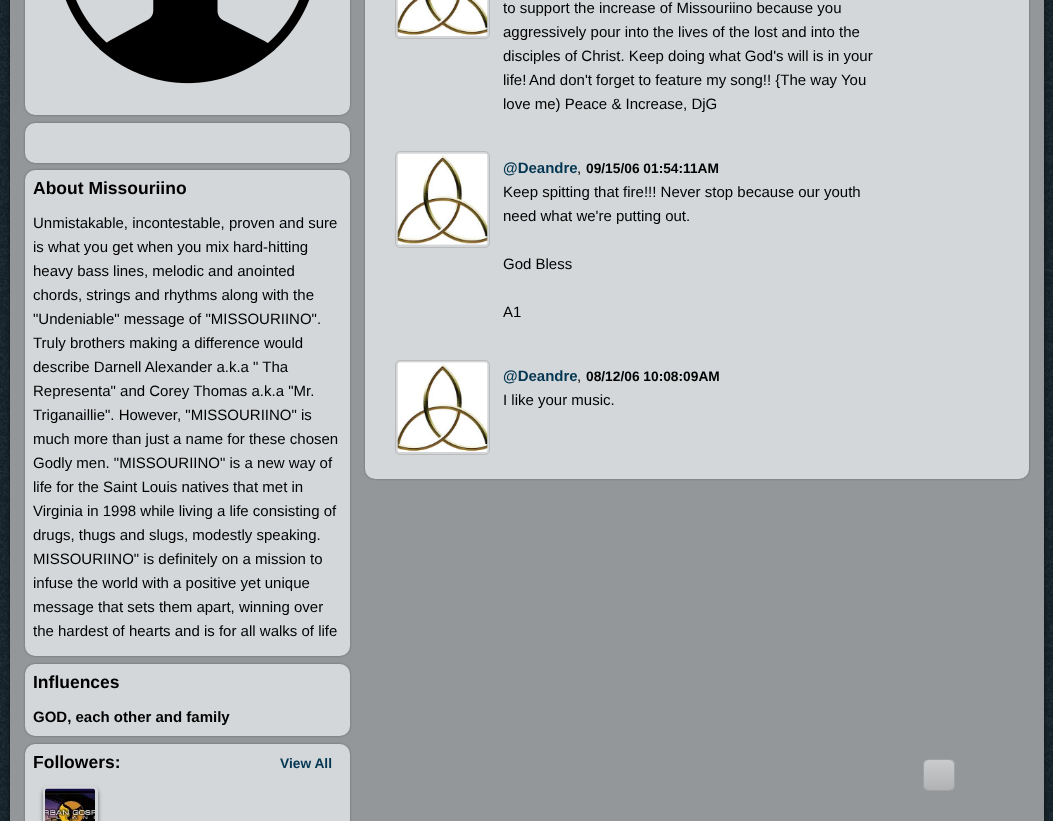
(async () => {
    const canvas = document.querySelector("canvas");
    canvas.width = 1053;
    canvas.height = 821;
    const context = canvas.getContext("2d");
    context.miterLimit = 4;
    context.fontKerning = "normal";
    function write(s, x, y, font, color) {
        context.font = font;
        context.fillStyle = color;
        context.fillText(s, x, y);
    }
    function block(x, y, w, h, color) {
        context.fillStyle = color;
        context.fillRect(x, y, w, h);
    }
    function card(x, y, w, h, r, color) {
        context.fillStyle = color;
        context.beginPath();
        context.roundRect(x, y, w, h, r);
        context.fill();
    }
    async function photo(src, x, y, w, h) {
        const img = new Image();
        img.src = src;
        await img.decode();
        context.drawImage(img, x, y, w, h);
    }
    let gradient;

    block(0, 0, 1053, 821, "rgb(24, 41, 51)");
    await photo("media/1.png", 0, 0, 1053, 821);
    context.fillStyle = "rgb(17, 17, 17)";
    context.filter = "blur(3px)";
    context.beginPath();
    context.roundRect(10, -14, 1034, 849, 5);
    context.fill();
    context.filter = "none";
    block(10, 0, 1034, 821, "rgb(148, 151, 153)");
    context.fillStyle = "rgb(102, 102, 102)";
    context.filter = "blur(1px)";
    context.beginPath();
    context.roundRect(25, -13, 325, 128, 10);
    context.fill();
    context.filter = "none";
    card(25, -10, 325, 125, 10, "rgb(212, 215, 217)");
    await photo("media/2.png", 65, 0, 245, 84);
    context.fillStyle = "rgb(102, 102, 102)";
    context.filter = "blur(1px)";
    context.beginPath();
    context.roundRect(25, 123, 325, 40, 10);
    context.fill();
    context.filter = "none";
    card(25, 123, 325, 40, 10, "rgb(212, 215, 217)");
    context.fillStyle = "rgb(102, 102, 102)";
    context.filter = "blur(1px)";
    context.beginPath();
    context.roundRect(25, 170, 325, 486, 10);
    context.fill();
    context.filter = "none";
    card(25, 170, 325, 486, 10, "rgb(212, 215, 217)");
    write("About Missouriino", 33, 194, "bold 17.5px Liberation Sans", "rgb(0, 0, 0)");
    write("Unmistakable, incontestable, proven and sure", 33, 228, "15px Liberation Sans", "rgb(0, 0, 0)");
    write("is what you get when you mix hard-hitting", 33, 252, "15px Liberation Sans", "rgb(0, 0, 0)");
    write("heavy bass lines, melodic and anointed", 33, 276, "15px Liberation Sans", "rgb(0, 0, 0)");
    write("chords, strings and rhythms along with the", 33, 300, "15px Liberation Sans", "rgb(0, 0, 0)");
    write("\"Undeniable\" message of \"MISSOURIINO\".", 33, 324, "15px Liberation Sans", "rgb(0, 0, 0)");
    write("Truly brothers making a difference would", 33, 348, "15px Liberation Sans", "rgb(0, 0, 0)");
    write("describe Darnell Alexander a.k.a \" Tha", 33, 372, "15px Liberation Sans", "rgb(0, 0, 0)");
    write("Representa\" and Corey Thomas a.k.a \"Mr.", 33, 396, "15px Liberation Sans", "rgb(0, 0, 0)");
    write("Triganaillie\". However, \"MISSOURIINO\" is", 33, 420, "15px Liberation Sans", "rgb(0, 0, 0)");
    write("much more than just a name for these chosen", 33, 444, "15px Liberation Sans", "rgb(0, 0, 0)");
    write("Godly men. \"MISSOURIINO\" is a new way of", 33, 468, "15px Liberation Sans", "rgb(0, 0, 0)");
    write("life for the Saint Louis natives that met in", 33, 492, "15px Liberation Sans", "rgb(0, 0, 0)");
    write("Virginia in 1998 while living a life consisting of", 33, 516, "15px Liberation Sans", "rgb(0, 0, 0)");
    write("drugs, thugs and slugs, modestly speaking.", 33, 540, "15px Liberation Sans", "rgb(0, 0, 0)");
    write("MISSOURIINO\" is definitely on a mission to", 33, 564, "15px Liberation Sans", "rgb(0, 0, 0)");
    write("infuse the world with a positive yet unique", 33, 588, "15px Liberation Sans", "rgb(0, 0, 0)");
    write("message that sets them apart, winning over", 33, 612, "15px Liberation Sans", "rgb(0, 0, 0)");
    write("the hardest of hearts and is for all walks of life", 33, 636, "15px Liberation Sans", "rgb(0, 0, 0)");
    context.fillStyle = "rgb(102, 102, 102)";
    context.filter = "blur(1px)";
    context.beginPath();
    context.roundRect(25, 664, 325, 72, 10);
    context.fill();
    context.filter = "none";
    card(25, 664, 325, 72, 10, "rgb(212, 215, 217)");
    write("Influences", 33, 688, "bold 17.5px Liberation Sans", "rgb(0, 0, 0)");
    write("GOD, each other and family", 33, 722, "bold 15px Liberation Sans", "rgb(0, 0, 0)");
    context.fillStyle = "rgb(102, 102, 102)";
    context.filter = "blur(1px)";
    context.beginPath();
    context.roundRect(25, 744, 325, 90, 10);
    context.fill();
    context.filter = "none";
    card(25, 744, 325, 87, 10, "rgb(212, 215, 217)");
    write("Followers:", 33, 768, "bold 17.5px Liberation Sans", "rgb(0, 0, 0)");
    write("View All", 280, 768, "bold 13.75px Liberation Sans", "rgb(3, 54, 82)");
    context.save();
    context.beginPath();
    context.moveTo(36, 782);
    context.lineTo(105, 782);
    context.lineTo(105, 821);
    context.lineTo(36, 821);
    context.closePath();
    context.moveTo(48, 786);
    context.lineTo(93, 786);
    context.bezierCurveTo(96, 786, 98, 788, 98, 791);
    context.lineTo(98, 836);
    context.bezierCurveTo(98, 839, 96, 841, 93, 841);
    context.lineTo(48, 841);
    context.bezierCurveTo(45, 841, 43, 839, 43, 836);
    context.lineTo(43, 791);
    context.bezierCurveTo(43, 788, 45, 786, 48, 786);
    context.closePath();
    context.clip("evenodd");
    context.fillStyle = "rgba(0, 0, 0, 0.5)";
    context.filter = "blur(2px)";
    context.beginPath();
    context.roundRect(43, 789, 55, 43, 5);
    context.fill();
    context.filter = "none";
    context.restore();
    await photo("media/3.png", 45, 788, 50, 33);
    context.fillStyle = "rgb(102, 102, 102)";
    context.filter = "blur(1px)";
    context.beginPath();
    context.roundRect(365, -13, 664, 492, 10);
    context.fill();
    context.filter = "none";
    card(365, -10, 664, 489, 10, "rgb(212, 215, 217)");
    context.beginPath();
    context.roundRect(395.5, -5.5, 94, 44, 4.5);
    context.strokeStyle = "rgb(187, 187, 187)";
    context.stroke();
    await photo("media/4.png", 397, 0, 91, 36);
    write("to support the increase of Missouriino because you", 503, 13, "15px Liberation Sans", "rgb(0, 0, 0)");
    write("aggressively pour into the lives of the lost and into the", 503, 37, "15px Liberation Sans", "rgb(0, 0, 0)");
    write("disciples of Christ. Keep doing what God's will is in your", 503, 61, "15px Liberation Sans", "rgb(0, 0, 0)");
    write("life!", 503, 85, "15px Liberation Sans", "rgb(0, 0, 0)");
    write("And don't forget to feature my song!! {The way You", 529, 85, "15px Liberation Sans", "rgb(0, 0, 0)");
    write("love me) Peace & Increase, DjG", 503, 109, "15px Liberation Sans", "rgb(0, 0, 0)");
    context.beginPath();
    context.roundRect(395.5, 151.5, 94, 96, 4.5);
    context.stroke();
    await photo("media/5.png", 397, 153, 91, 92);
    write("@Deandre", 503, 173, "bold 15px Liberation Sans", "rgb(3, 54, 82)");
    write(",", 577, 173, "15px Liberation Sans", "rgb(0, 0, 0)");
    write("09/15/06 01:54:11AM", 586, 173, "bold 13.75px Liberation Sans", "rgb(0, 0, 0)");
    write("Keep spitting that fire!!! Never stop because our youth", 503, 197, "15px Liberation Sans", "rgb(0, 0, 0)");
    write("need what we're putting out.", 503, 221, "15px Liberation Sans", "rgb(0, 0, 0)");
    write("God Bless", 503, 269, "15px Liberation Sans", "rgb(0, 0, 0)");
    write("A1", 503, 317, "15px Liberation Sans", "rgb(0, 0, 0)");
    context.beginPath();
    context.roundRect(395.5, 360.5, 94, 94, 4.5);
    context.stroke();
    await photo("media/6.png", 397, 362, 91, 90);
    write("@Deandre", 503, 381, "bold 15px Liberation Sans", "rgb(3, 54, 82)");
    write(",", 577, 381, "15px Liberation Sans", "rgb(0, 0, 0)");
    write("08/12/06 10:08:09AM", 586, 381, "bold 13.75px Liberation Sans", "rgb(0, 0, 0)");
    write("I like your music.", 503, 405, "15px Liberation Sans", "rgb(0, 0, 0)");
    context.save();
    context.beginPath();
    context.roundRect(923, 759, 32, 32, 6);
    context.clip();
    gradient = context.createLinearGradient(924, 760, 924, 790);
    gradient.addColorStop(0, "rgb(202, 203, 204)");
    gradient.addColorStop(1, "rgb(176, 178, 179)");
    context.fillStyle = gradient;
    context.fillRect(923, 760, 32, 30);
    context.restore();
    context.beginPath();
    context.roundRect(923.5, 759.5, 31, 31, 5.5);
    context.strokeStyle = "rgb(159, 161, 162)";
    context.stroke();
})();
